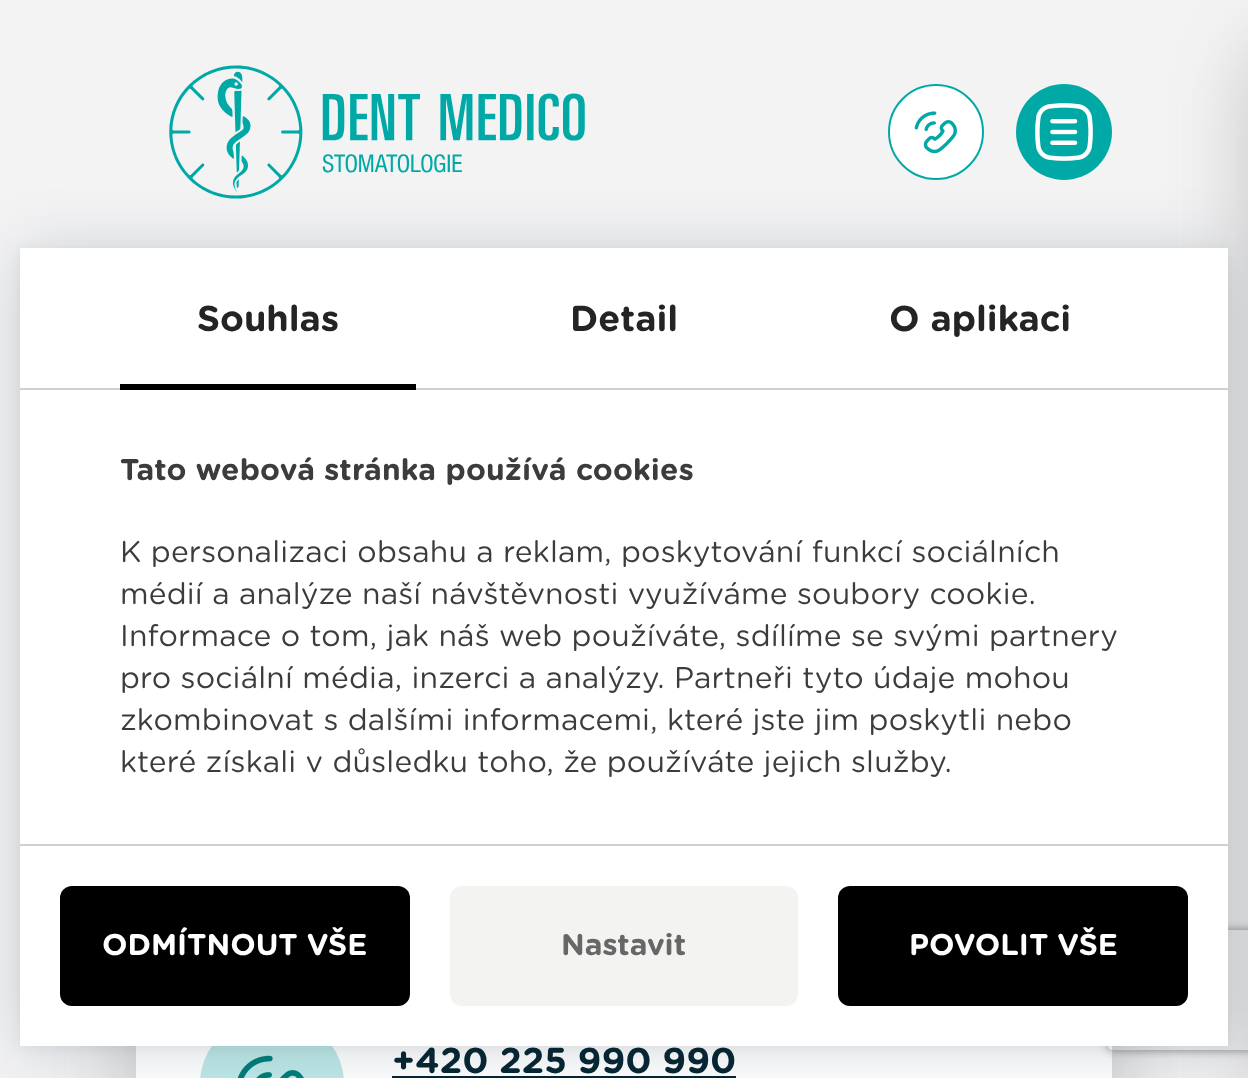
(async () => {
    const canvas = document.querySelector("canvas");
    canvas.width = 1248;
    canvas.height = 1078;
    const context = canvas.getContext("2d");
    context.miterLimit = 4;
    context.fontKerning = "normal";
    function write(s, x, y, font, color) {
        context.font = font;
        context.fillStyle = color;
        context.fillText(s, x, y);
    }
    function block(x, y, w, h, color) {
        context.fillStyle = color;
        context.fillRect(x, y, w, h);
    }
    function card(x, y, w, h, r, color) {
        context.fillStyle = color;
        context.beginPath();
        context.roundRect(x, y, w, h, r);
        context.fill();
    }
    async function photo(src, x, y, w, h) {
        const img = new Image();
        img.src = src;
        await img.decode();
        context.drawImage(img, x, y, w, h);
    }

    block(0, 0, 1248, 1078, "rgb(243, 243, 244)");
    await photo("media/1.png", 169, 65, 416, 134);
    context.fillStyle = "rgb(255, 255, 255)";
    context.beginPath();
    context.arc(936, 132, 47, 0, Math.PI * 2);
    context.fill();
    context.strokeStyle = "rgb(0, 169, 166)";
    context.lineWidth = 2;
    context.stroke();
    await photo("media/2.png", 914, 111, 43, 43);
    context.fillStyle = "rgb(0, 169, 166)";
    context.beginPath();
    context.arc(1064, 132, 48, 0, Math.PI * 2);
    context.fill();
    await photo("media/3.png", 1035, 103, 58, 58);
    context.fillStyle = "rgba(64, 65, 64, 0.25)";
    context.filter = "blur(40px)";
    context.beginPath();
    context.roundRect(1248, 34, 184, 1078, 64);
    context.fill();
    context.filter = "none";
    context.filter = "blur(40px)";
    context.beginPath();
    context.roundRect(136, 748, 976, 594, 144);
    context.fill();
    context.filter = "none";
    block(136, 1046, 976, 32, "rgb(255, 255, 255)");
    card(200, 1018, 144, 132, 72, "rgb(191, 233, 232)");
    await photo("media/4.png", 237, 1055, 67, 23);
    block(392, 1076, 344, 2, "rgb(6, 38, 52)");
    context.fillStyle = "rgba(5, 27, 44, 0.16)";
    context.filter = "blur(32px)";
    context.beginPath();
    context.rect(20, 252, 1208, 798);
    context.fill();
    context.filter = "none";
    context.fillStyle = "rgba(5, 27, 44, 0.06)";
    context.filter = "blur(6px)";
    context.beginPath();
    context.rect(20, 250, 1208, 798);
    context.fill();
    context.filter = "none";
    context.save();
    context.beginPath();
    context.moveTo(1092, 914);
    context.lineTo(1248, 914);
    context.lineTo(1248, 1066);
    context.lineTo(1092, 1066);
    context.closePath();
    context.moveTo(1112, 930);
    context.lineTo(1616, 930);
    context.bezierCurveTo(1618, 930, 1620, 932, 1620, 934);
    context.lineTo(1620, 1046);
    context.bezierCurveTo(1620, 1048, 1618, 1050, 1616, 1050);
    context.lineTo(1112, 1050);
    context.bezierCurveTo(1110, 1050, 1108, 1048, 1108, 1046);
    context.lineTo(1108, 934);
    context.bezierCurveTo(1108, 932, 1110, 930, 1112, 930);
    context.closePath();
    context.clip("evenodd");
    context.fillStyle = "rgb(128, 128, 128)";
    context.filter = "blur(5px)";
    context.beginPath();
    context.roundRect(1108, 930, 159, 120, 4);
    context.fill();
    context.filter = "none";
    context.restore();
    block(20, 248, 1208, 798, "rgb(255, 255, 255)");
    block(20, 388, 1208, 2, "rgb(208, 208, 208)");
    write("Souhlas", 197, 331, "bold 36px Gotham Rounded", "rgb(36, 36, 36)");
    block(120, 384, 296, 6, "rgb(0, 0, 0)");
    write("Detail", 570, 331, "bold 36px Gotham Rounded", "rgb(36, 36, 36)");
    write("O aplikaci", 889, 331, "bold 36px Gotham Rounded", "rgb(36, 36, 36)");
    context.letterSpacing = "0.2px";
    write("Tato webová stránka používá cookies", 120, 480, "bold 30px Gotham Rounded", "rgb(60, 60, 60)");
    write("K personalizaci obsahu a reklam, poskytování funkcí sociálních", 120, 562, "30px Gotham Rounded", "rgb(60, 60, 60)");
    write("médií a analýze naší návštěvnosti využíváme soubory cookie.", 120, 604, "30px Gotham Rounded", "rgb(60, 60, 60)");
    write("Informace o tom, jak náš web používáte, sdílíme se svými partnery", 120, 646, "30px Gotham Rounded", "rgb(60, 60, 60)");
    write("pro sociální média, inzerci a analýzy. Partneři tyto údaje mohou", 120, 688, "30px Gotham Rounded", "rgb(60, 60, 60)");
    write("zkombinovat s dalšími informacemi, které jste jim poskytli nebo", 120, 730, "30px Gotham Rounded", "rgb(60, 60, 60)");
    write("které získali v důsledku toho, že používáte jejich služby.", 120, 772, "30px Gotham Rounded", "rgb(60, 60, 60)");
    block(20, 844, 1208, 2, "rgb(208, 208, 208)");
    card(60, 886, 350, 120, 12, "rgb(0, 0, 0)");
    context.letterSpacing = "0px";
    write("ODMÍTNOUT VŠE", 102, 955, "bold 30px Gotham Rounded", "rgb(255, 255, 255)");
    card(450, 886, 348, 120, 12, "rgb(243, 243, 242)");
    write("Nastavit", 561, 955, "bold 30px Gotham Rounded", "rgb(103, 103, 103)");
    card(838, 886, 350, 120, 12, "rgb(0, 0, 0)");
    write("POVOLIT VŠE", 909, 955, "bold 30px Gotham Rounded", "rgb(255, 255, 255)");
    write("+420 225 990 990", 392, 1073, "bold 36px Gotham Rounded", "rgb(6, 38, 52)");
})();
